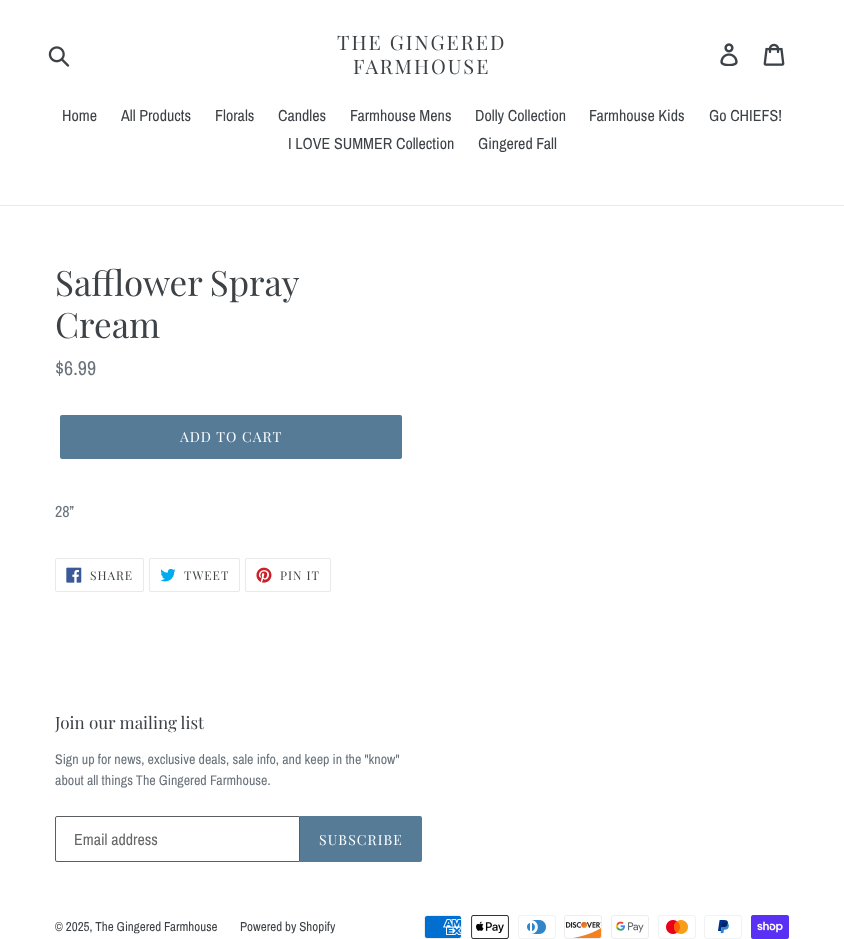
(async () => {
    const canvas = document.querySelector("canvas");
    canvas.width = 844;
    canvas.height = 939;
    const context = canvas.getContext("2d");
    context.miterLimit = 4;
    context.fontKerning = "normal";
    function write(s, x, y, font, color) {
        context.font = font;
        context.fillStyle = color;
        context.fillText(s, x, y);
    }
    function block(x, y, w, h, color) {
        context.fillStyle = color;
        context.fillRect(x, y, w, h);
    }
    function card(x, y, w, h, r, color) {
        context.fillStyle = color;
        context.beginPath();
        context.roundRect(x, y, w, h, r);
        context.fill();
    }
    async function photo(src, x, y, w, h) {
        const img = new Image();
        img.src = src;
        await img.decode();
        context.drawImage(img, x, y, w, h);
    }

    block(0, 0, 844, 939, "rgb(255, 255, 255)");
    await photo("media/1.png", 48, 46, 22, 21);
    context.letterSpacing = "2px";
    write("THE GINGERED", 337, 50, "20px Playfair Display", "rgb(61, 66, 70)");
    write("FARMHOUSE", 353, 74, "20px Playfair Display", "rgb(61, 66, 70)");
    await photo("media/2.png", 720, 43, 18, 23);
    await photo("media/3.png", 763, 43, 22, 23);
    block(0, 205, 844, 1, "rgb(232, 233, 235)");
    context.letterSpacing = "0px";
    write("Home", 62, 121, "16px Archivo Narrow", "rgb(61, 66, 70)");
    write("All Products", 121, 121, "16px Archivo Narrow", "rgb(61, 66, 70)");
    write("Florals", 215, 121, "16px Archivo Narrow", "rgb(61, 66, 70)");
    write("Candles", 278, 121, "16px Archivo Narrow", "rgb(61, 66, 70)");
    write("Farmhouse Mens", 350, 121, "16px Archivo Narrow", "rgb(61, 66, 70)");
    write("Dolly Collection", 475, 121, "16px Archivo Narrow", "rgb(61, 66, 70)");
    write("Farmhouse Kids", 589, 121, "16px Archivo Narrow", "rgb(61, 66, 70)");
    write("Go CHIEFS!", 709, 121, "16px Archivo Narrow", "rgb(61, 66, 70)");
    write("I LOVE SUMMER Collection", 288, 149, "16px Archivo Narrow", "rgb(61, 66, 70)");
    write("Gingered Fall", 478, 149, "16px Archivo Narrow", "rgb(61, 66, 70)");
    context.wordSpacing = "-1px";
    write("Safflower Spray", 55, 296, "35px Playfair Display", "rgb(61, 66, 70)");
    context.wordSpacing = "0px";
    write("Cream", 55, 338, "35px Playfair Display", "rgb(61, 66, 70)");
    write("$6.99", 55, 375, "20px Archivo Narrow", "rgb(105, 114, 123)");
    card(60, 415, 342, 44, 2, "rgb(85, 123, 151)");
    context.letterSpacing = "1.1px";
    write("ADD TO CART", 180, 442, "14px Playfair Display", "rgb(255, 255, 255)");
    context.letterSpacing = "0px";
    write("28”", 55, 517, "16px Archivo Narrow", "rgb(105, 114, 123)");
    context.beginPath();
    context.roundRect(55.5, 558.5, 88, 33, 1.5);
    context.strokeStyle = "rgb(232, 233, 235)";
    context.stroke();
    await photo("media/4.png", 66, 567, 16, 16);
    context.letterSpacing = "1px";
    write("SHARE", 90, 580, "12px Playfair Display", "rgb(61, 66, 70)");
    context.beginPath();
    context.roundRect(149.5, 558.5, 90, 33, 1.5);
    context.stroke();
    await photo("media/5.png", 160, 568, 16, 14);
    write("TWEET", 184, 580, "12px Playfair Display", "rgb(61, 66, 70)");
    context.beginPath();
    context.roundRect(245.5, 558.5, 85, 33, 1.5);
    context.stroke();
    await photo("media/6.png", 256, 567, 16, 16);
    write("PIN IT", 280, 580, "12px Playfair Display", "rgb(61, 66, 70)");
    context.letterSpacing = "0px";
    write("Join our mailing list", 55, 729, "17px Playfair Display", "rgb(61, 66, 70)");
    write("Sign up for news, exclusive deals, sale info, and keep in the \"know\"", 55, 764, "14px Archivo Narrow", "rgb(105, 114, 123)");
    write("about all things The Gingered Farmhouse.", 55, 785, "14px Archivo Narrow", "rgb(105, 114, 123)");
    context.beginPath();
    context.roundRect(55.5, 816.5, 244, 45, [1.5, 0, 0, 1.5]);
    context.strokeStyle = "rgb(90, 94, 98)";
    context.stroke();
    write("Email address", 74, 845, "16px Archivo Narrow", "rgb(102, 102, 102)");
    context.fillStyle = "rgb(85, 123, 151)";
    context.beginPath();
    context.roundRect(300, 816, 122, 46, [0, 2, 2, 0]);
    context.fill();
    context.letterSpacing = "1.1px";
    write("SUBSCRIBE", 319, 845, "14px Playfair Display", "rgb(255, 255, 255)");
    context.letterSpacing = "0px";
    write("© 2025, The Gingered Farmhouse", 55, 931, "13px Archivo Narrow", "rgb(61, 66, 70)");
    write("Powered by Shopify", 240, 931, "13px Archivo Narrow", "rgb(61, 66, 70)");
    await photo("media/7.png", 424, 915, 38, 24);
    await photo("media/8.png", 471, 915, 38, 24);
    await photo("media/9.png", 518, 915, 38, 24);
    await photo("media/10.png", 564, 915, 38, 24);
    await photo("media/11.png", 611, 915, 38, 24);
    await photo("media/12.png", 658, 915, 38, 24);
    await photo("media/13.png", 704, 915, 38, 24);
    await photo("media/14.png", 751, 915, 38, 24);
})();
